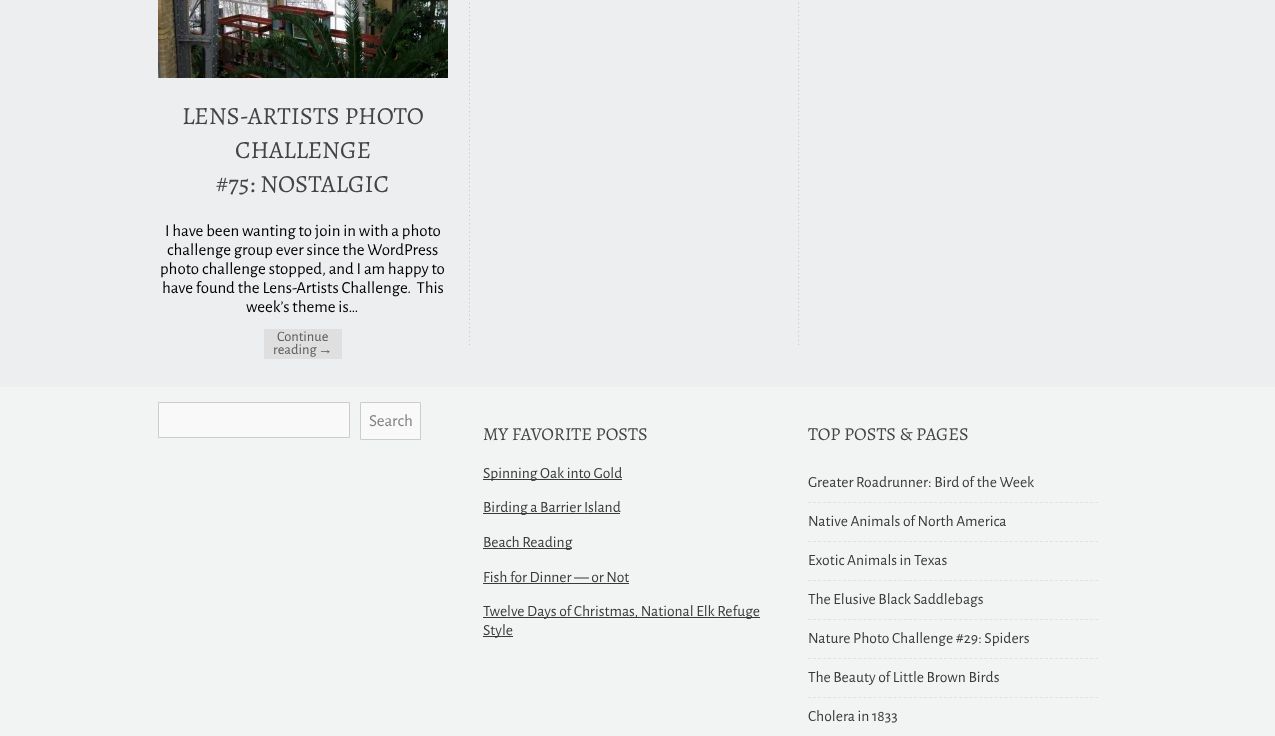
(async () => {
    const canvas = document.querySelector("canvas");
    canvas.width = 1275;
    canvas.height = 736;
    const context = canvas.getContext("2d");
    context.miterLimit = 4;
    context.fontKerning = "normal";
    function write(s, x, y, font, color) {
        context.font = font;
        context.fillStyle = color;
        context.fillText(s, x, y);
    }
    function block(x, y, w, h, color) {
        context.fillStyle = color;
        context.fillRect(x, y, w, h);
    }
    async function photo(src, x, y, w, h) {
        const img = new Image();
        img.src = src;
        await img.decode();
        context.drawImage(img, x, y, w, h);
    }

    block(0, 0, 1275, 736, "rgb(237, 238, 240)");
    await photo("media/1.png", 469, 2, 331, 343);
    await photo("media/2.png", 158, 0, 290, 78);
    write("LENS-ARTISTS PHOTO", 182, 124, "24.75px Alegreya", "rgb(68, 68, 68)");
    write("CHALLENGE", 235, 158, "24.75px Alegreya", "rgb(68, 68, 68)");
    write("#75: NOSTALGIC", 216, 192, "24.75px Alegreya", "rgb(68, 68, 68)");
    write("I have been wanting to join in with a photo", 165, 236, "16.9px Alegreya Sans", "rgb(0, 0, 0)");
    write("challenge group ever since the WordPress", 167, 255, "16.9px Alegreya Sans", "rgb(0, 0, 0)");
    write("photo challenge stopped, and I am happy to", 160, 274, "16.9px Alegreya Sans", "rgb(0, 0, 0)");
    write("have found the Lens-Artists Challenge.  This", 162, 293, "16.9px Alegreya Sans", "rgb(0, 0, 0)");
    write("week’s theme is…", 246, 312, "16.9px Alegreya Sans", "rgb(0, 0, 0)");
    block(264, 329, 78, 30, "rgb(223, 223, 223)");
    write("Continue", 277, 341, "14.5px Alegreya Sans", "rgb(91, 91, 91)");
    write("reading", 273, 354, "14.5px Alegreya Sans", "rgb(91, 91, 91)");
    write("→", 318, 354, "14.5px Liberation Sans", "rgb(91, 91, 91)");
    block(0, 387, 1275, 349, "rgb(242, 243, 243)");
    context.fillStyle = "rgb(249, 249, 249)";
    context.beginPath();
    context.rect(158.5, 402.5, 191, 35);
    context.fill();
    context.strokeStyle = "rgb(204, 204, 204)";
    context.stroke();
    context.beginPath();
    context.rect(360.5, 402.5, 60, 37);
    context.fill();
    context.stroke();
    write("Search", 369, 426, "16.9px Alegreya Sans", "rgb(127, 127, 127)");
    write("MY FAVORITE POSTS", 483, 440, "18.25px Alegreya", "rgb(68, 68, 68)");
    block(483, 479, 139, 1, "rgb(58, 58, 58)");
    write("Spinning Oak into Gold", 483, 478, "15.6px Alegreya Sans", "rgb(58, 58, 58)");
    block(483, 513, 137, 1, "rgb(58, 58, 58)");
    write("Birding a Barrier Island", 483, 512, "15.6px Alegreya Sans", "rgb(58, 58, 58)");
    block(483, 548, 89, 1, "rgb(58, 58, 58)");
    write("Beach Reading", 483, 547, "15.6px Alegreya Sans", "rgb(58, 58, 58)");
    write("Fish for Dinner — or Not", 483, 582, "15.6px Alegreya Sans", "rgb(58, 58, 58)");
    block(483, 583, 146, 1, "rgb(58, 58, 58)");
    block(483, 617, 277, 1, "rgb(58, 58, 58)");
    write("Twelve Days of Christmas, National Elk Refuge", 483, 616, "15.6px Alegreya Sans", "rgb(58, 58, 58)");
    block(483, 636, 30, 1, "rgb(58, 58, 58)");
    write("Style", 483, 635, "15.6px Alegreya Sans", "rgb(58, 58, 58)");
    context.save();
    context.beginPath();
    context.rect(808, 402, 290, 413);
    context.clip();
    write("TOP POSTS & PAGES", 808, 440, "18.25px Alegreya", "rgb(68, 68, 68)");
    context.restore();
    context.beginPath();
    context.moveTo(808, 502.5);
    context.lineTo(1098, 502.5);
    context.strokeStyle = "rgb(225, 225, 225)";
    context.setLineDash([3, 2.04]);
    context.stroke();
    write("Greater Roadrunner: Bird of the Week", 808, 487, "15.6px Alegreya Sans", "rgb(58, 58, 58)");
    context.beginPath();
    context.moveTo(808, 541.5);
    context.lineTo(1098, 541.5);
    context.stroke();
    write("Native Animals of North America", 808, 526, "15.6px Alegreya Sans", "rgb(58, 58, 58)");
    context.beginPath();
    context.moveTo(808, 580.5);
    context.lineTo(1098, 580.5);
    context.stroke();
    write("Exotic Animals in Texas", 808, 565, "15.6px Alegreya Sans", "rgb(58, 58, 58)");
    context.beginPath();
    context.moveTo(808, 619.5);
    context.lineTo(1098, 619.5);
    context.stroke();
    write("The Elusive Black Saddlebags", 808, 604, "15.6px Alegreya Sans", "rgb(58, 58, 58)");
    context.beginPath();
    context.moveTo(808, 658.5);
    context.lineTo(1098, 658.5);
    context.stroke();
    write("Nature Photo Challenge #29: Spiders", 808, 643, "15.6px Alegreya Sans", "rgb(58, 58, 58)");
    context.beginPath();
    context.moveTo(808, 697.5);
    context.lineTo(1098, 697.5);
    context.stroke();
    write("The Beauty of Little Brown Birds", 808, 682, "15.6px Alegreya Sans", "rgb(58, 58, 58)");
    write("Cholera in 1833", 808, 721, "15.6px Alegreya Sans", "rgb(58, 58, 58)");
})();
